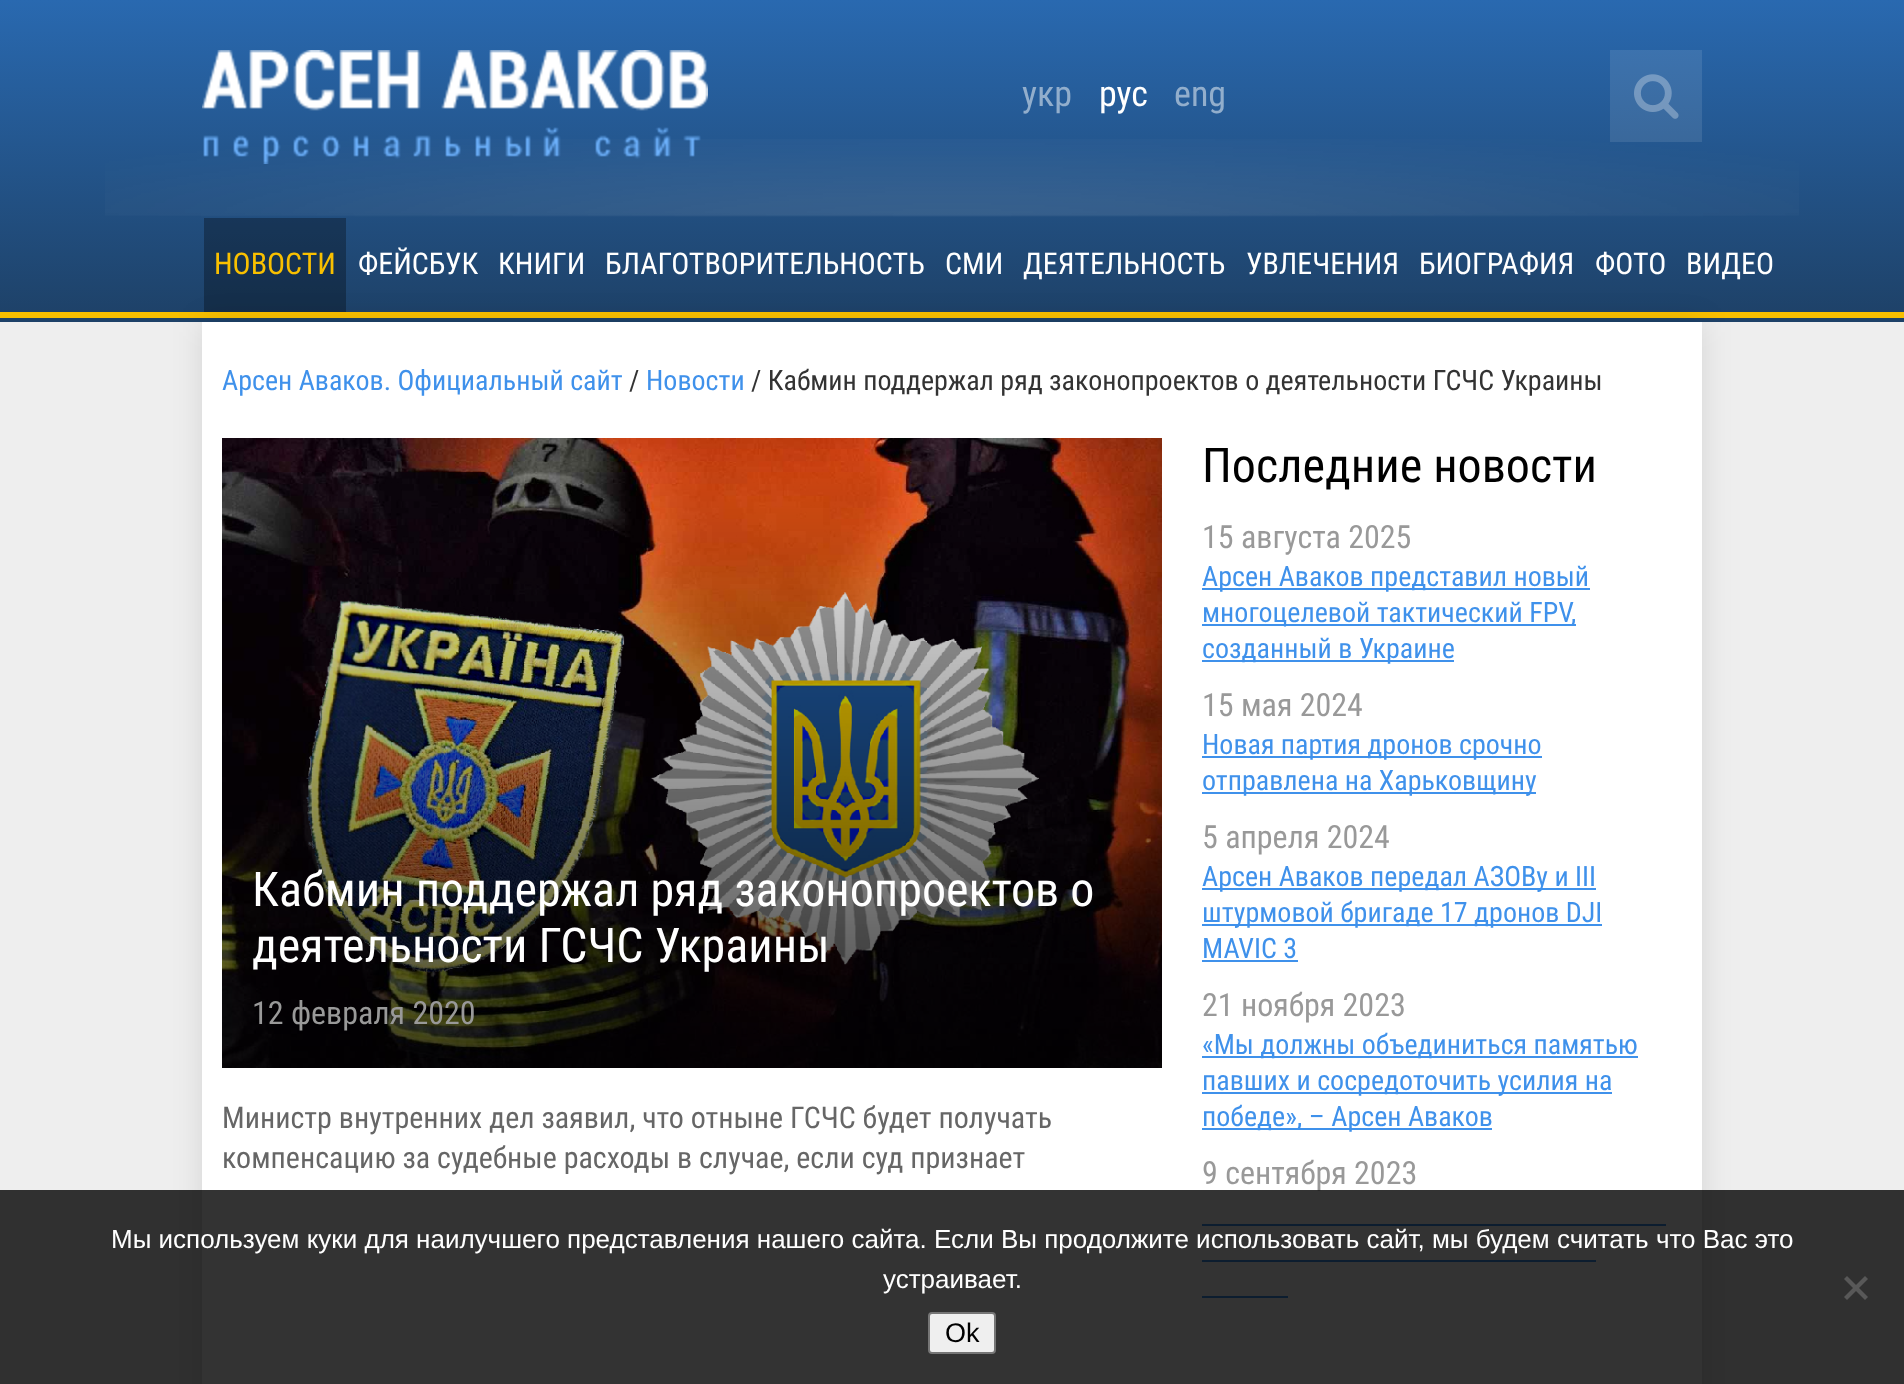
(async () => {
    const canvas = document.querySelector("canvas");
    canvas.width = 1904;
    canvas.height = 1384;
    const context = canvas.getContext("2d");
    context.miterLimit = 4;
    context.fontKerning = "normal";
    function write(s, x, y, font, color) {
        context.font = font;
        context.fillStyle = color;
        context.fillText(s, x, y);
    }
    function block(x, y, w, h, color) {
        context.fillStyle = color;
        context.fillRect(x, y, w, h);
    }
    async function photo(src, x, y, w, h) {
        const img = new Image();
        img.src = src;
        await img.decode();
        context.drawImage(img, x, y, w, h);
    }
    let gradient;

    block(0, 0, 1904, 1384, "rgb(238, 238, 238)");
    block(0, 318, 1904, 4, "rgb(29, 65, 104)");
    gradient = context.createLinearGradient(952, 0, 952, 312);
    gradient.addColorStop(0, "rgb(41, 105, 176)");
    gradient.addColorStop(1, "rgb(30, 66, 105)");
    context.fillStyle = gradient;
    context.fillRect(0, 0, 1904, 312);
    gradient = context.createLinearGradient(952, 0, 952, 312);
    gradient.addColorStop(0, "rgb(62, 120, 184)");
    gradient.addColorStop(1, "rgb(53, 85, 120)");
    context.fillStyle = gradient;
    context.fillRect(1610, 50, 92, 92);
    block(0, 312, 1904, 6, "rgb(248, 191, 0)");
    await photo("media/3.png", 105, 139, 1694, 78);
    await photo("media/1.png", 202, 50, 506, 114);
    write("укр", 1022, 106, "36px Roboto Condensed", "rgb(146, 174, 204)");
    write("рус", 1099, 106, "36px Roboto Condensed", "rgb(255, 255, 255)");
    write("eng", 1174, 106, "36px Roboto Condensed", "rgb(146, 174, 204)");
    await photo("media/2.png", 1634, 74, 45, 45);
    context.fillStyle = "rgba(0, 0, 0, 0.1)";
    context.filter = "blur(15px)";
    context.beginPath();
    context.rect(202, 322, 1500, 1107);
    context.fill();
    context.filter = "none";
    block(204, 218, 142, 94, "rgba(0, 0, 0, 0.3)");
    write("НОВОСТИ", 214, 274, "30px Roboto Condensed", "rgb(249, 192, 0)");
    write("ФЕЙСБУК", 358, 274, "30px Roboto Condensed", "rgb(255, 255, 255)");
    write("КНИГИ", 498, 274, "30px Roboto Condensed", "rgb(255, 255, 255)");
    write("БЛАГОТВОРИТЕЛЬНОСТЬ", 605, 274, "30px Roboto Condensed", "rgb(255, 255, 255)");
    write("СМИ", 945, 274, "30px Roboto Condensed", "rgb(255, 255, 255)");
    write("ДЕЯТЕЛЬНОСТЬ", 1023, 274, "30px Roboto Condensed", "rgb(255, 255, 255)");
    write("УВЛЕЧЕНИЯ", 1246, 274, "30px Roboto Condensed", "rgb(255, 255, 255)");
    write("БИОГРАФИЯ", 1419, 274, "30px Roboto Condensed", "rgb(255, 255, 255)");
    write("ФОТО", 1595, 274, "30px Roboto Condensed", "rgb(255, 255, 255)");
    write("ВИДЕО", 1686, 274, "30px Roboto Condensed", "rgb(255, 255, 255)");
    block(202, 322, 1500, 1062, "rgb(255, 255, 255)");
    write("Арсен Аваков. Официальный сайт", 222, 390, "28px Roboto Condensed", "rgb(63, 145, 235)");
    write("/", 629, 390, "28px Roboto Condensed", "rgb(51, 51, 51)");
    write("Новости", 646, 390, "28px Roboto Condensed", "rgb(63, 145, 235)");
    write("/ Кабмин поддержал ряд законопроектов о деятельности ГСЧС Украины", 751, 390, "28px Roboto Condensed", "rgb(51, 51, 51)");
    await photo("media/4.png", 222, 438, 940, 630);
    write("Кабмин поддержал ряд законопроектов о", 252, 906, "48px Roboto Condensed", "rgb(255, 255, 255)");
    write("деятельности ГСЧС Украины", 252, 962, "48px Roboto Condensed", "rgb(255, 255, 255)");
    write("12 февраля 2020", 252, 1024, "32px Roboto Condensed", "rgb(153, 153, 153)");
    write("Министр внутренних дел заявил, что отныне ГСЧС будет получать", 222, 1128, "30px Roboto Condensed", "rgb(102, 102, 102)");
    write("компенсацию за судебные расходы в случае, если суд признает", 222, 1168, "30px Roboto Condensed", "rgb(102, 102, 102)");
    write("Последние новости", 1202, 482, "48px Roboto Condensed", "rgb(0, 0, 0)");
    write("15 августа 2025", 1202, 548, "32px Roboto Condensed", "rgb(153, 153, 153)");
    block(1202, 588, 388, 2, "rgb(63, 145, 235)");
    write("Арсен Аваков представил новый", 1202, 586, "28px Roboto Condensed", "rgb(63, 145, 235)");
    block(1202, 624, 374, 2, "rgb(63, 145, 235)");
    write("многоцелевой тактический FPV,", 1202, 622, "28px Roboto Condensed", "rgb(63, 145, 235)");
    block(1202, 660, 252, 2, "rgb(63, 145, 235)");
    write("созданный в Украине", 1202, 658, "28px Roboto Condensed", "rgb(63, 145, 235)");
    write("15 мая 2024", 1202, 716, "32px Roboto Condensed", "rgb(153, 153, 153)");
    block(1202, 756, 340, 2, "rgb(63, 145, 235)");
    write("Новая партия дронов срочно", 1202, 754, "28px Roboto Condensed", "rgb(63, 145, 235)");
    block(1202, 792, 334, 2, "rgb(63, 145, 235)");
    write("отправлена на Харьковщину", 1202, 790, "28px Roboto Condensed", "rgb(63, 145, 235)");
    write("5 апреля 2024", 1202, 848, "32px Roboto Condensed", "rgb(153, 153, 153)");
    block(1202, 888, 394, 2, "rgb(63, 145, 235)");
    write("Арсен Аваков передал АЗОВу и III", 1202, 886, "28px Roboto Condensed", "rgb(63, 145, 235)");
    block(1202, 924, 400, 2, "rgb(63, 145, 235)");
    write("штурмовой бригаде 17 дронов DJI", 1202, 922, "28px Roboto Condensed", "rgb(63, 145, 235)");
    write("MAVIC 3", 1202, 958, "28px Roboto Condensed", "rgb(63, 145, 235)");
    block(1202, 960, 96, 2, "rgb(63, 145, 235)");
    write("21 ноября 2023", 1202, 1016, "32px Roboto Condensed", "rgb(153, 153, 153)");
    block(1202, 1056, 436, 2, "rgb(63, 145, 235)");
    write("«Мы должны объединиться памятью", 1202, 1054, "28px Roboto Condensed", "rgb(63, 145, 235)");
    block(1202, 1092, 410, 2, "rgb(63, 145, 235)");
    write("павших и сосредоточить усилия на", 1202, 1090, "28px Roboto Condensed", "rgb(63, 145, 235)");
    block(1202, 1128, 290, 2, "rgb(63, 145, 235)");
    write("победе», – Арсен Аваков", 1202, 1126, "28px Roboto Condensed", "rgb(63, 145, 235)");
    write("9 сентября 2023", 1202, 1184, "32px Roboto Condensed", "rgb(153, 153, 153)");
    block(1202, 1224, 464, 2, "rgb(63, 145, 235)");
    block(1202, 1260, 394, 2, "rgb(63, 145, 235)");
    block(1202, 1296, 86, 2, "rgb(63, 145, 235)");
    block(0, 1190, 1904, 194, "rgba(0, 0, 0, 0.8)");
    write("Мы используем куки для наилучшего представления нашего сайта. Если Вы продолжите использовать сайт, мы будем считать что Вас это", 111, 1248, "26px Liberation Sans", "rgb(255, 255, 255)");
    write("устраивает.", 883, 1288, "26px Liberation Sans", "rgb(255, 255, 255)");
    context.fillStyle = "rgb(88, 88, 88)";
    context.beginPath();
    context.moveTo(1865, 1276);
    context.lineTo(1868, 1279);
    context.lineTo(1847, 1300);
    context.lineTo(1844, 1297);
    context.closePath();
    context.fill();
    context.beginPath();
    context.moveTo(1844, 1279);
    context.lineTo(1847, 1276);
    context.lineTo(1868, 1297);
    context.lineTo(1865, 1300);
    context.closePath();
    context.fill();
    context.fillStyle = "rgb(239, 239, 239)";
    context.beginPath();
    context.roundRect(929, 1313, 66, 40, 3);
    context.fill();
    context.strokeStyle = "rgb(118, 118, 118)";
    context.lineWidth = 2;
    context.stroke();
    write("Ok", 945, 1342, "27px Liberation Sans", "rgb(0, 0, 0)");
})();
